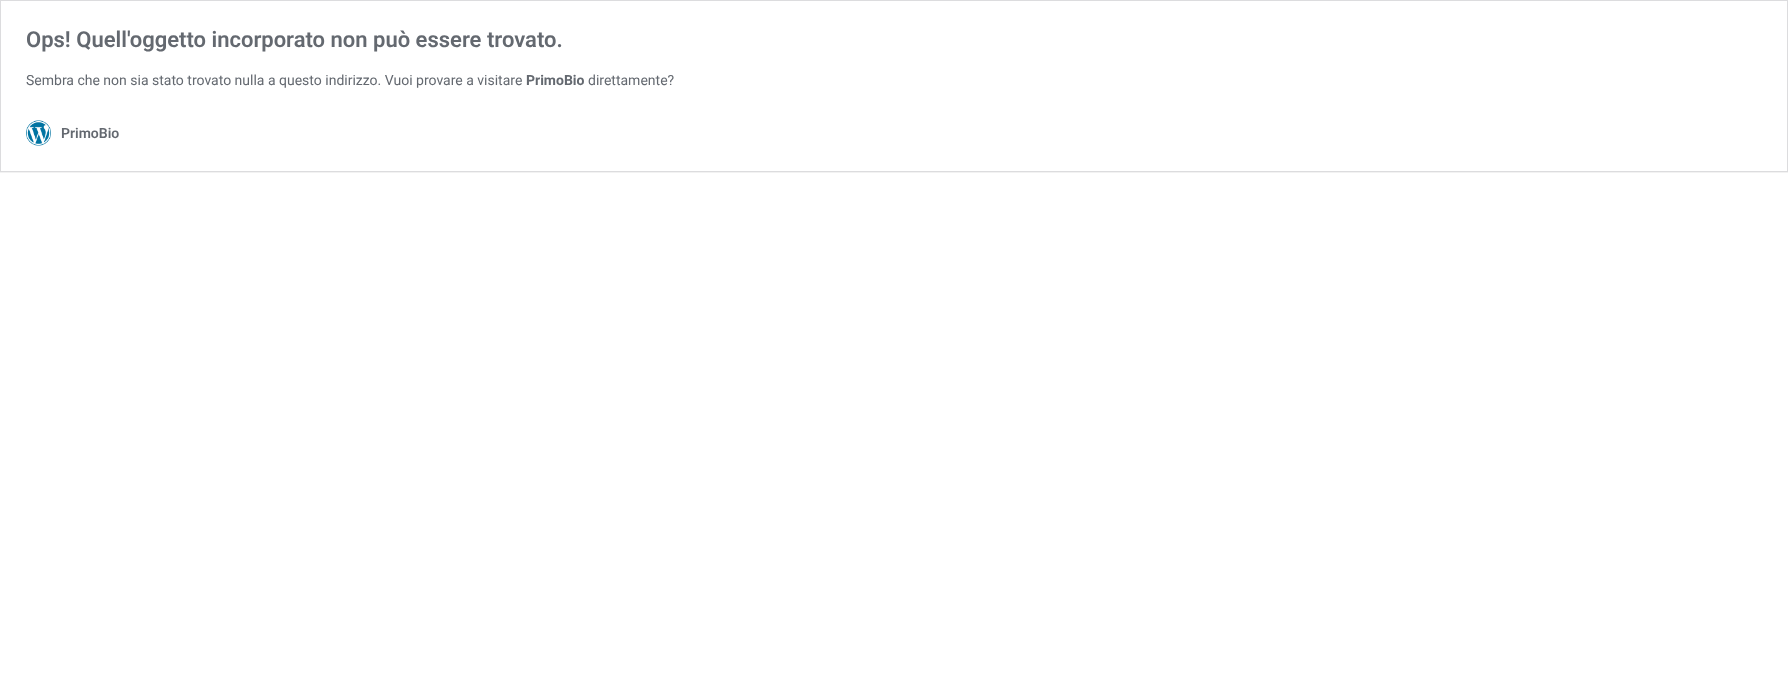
(async () => {
    const canvas = document.querySelector("canvas");
    canvas.width = 1788;
    canvas.height = 695;
    const context = canvas.getContext("2d");
    context.miterLimit = 4;
    context.fontKerning = "normal";
    function write(s, x, y, font, color) {
        context.font = font;
        context.fillStyle = color;
        context.fillText(s, x, y);
    }
    function block(x, y, w, h, color) {
        context.fillStyle = color;
        context.fillRect(x, y, w, h);
    }
    async function photo(src, x, y, w, h) {
        const img = new Image();
        img.src = src;
        await img.decode();
        context.drawImage(img, x, y, w, h);
    }

    block(0, 0, 1788, 695, "rgb(255, 255, 255)");
    context.save();
    context.beginPath();
    context.rect(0, 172, 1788, 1);
    context.clip();
    context.fillStyle = "rgba(0, 0, 0, 0.05)";
    context.filter = "blur(0.5px)";
    context.beginPath();
    context.rect(0, 1, 1788, 172);
    context.fill();
    context.filter = "none";
    context.restore();
    context.strokeStyle = "rgb(220, 220, 222)";
    context.strokeRect(0.5, 0.5, 1787, 171);
    write("Ops! Quell'oggetto incorporato non può essere trovato.", 26, 47, "600 22px Roboto", "rgb(100, 105, 112)");
    write("Sembra che non sia stato trovato nulla a questo indirizzo. Vuoi provare a visitare", 26, 85, "14px Roboto", "rgb(100, 105, 112)");
    write("PrimoBio", 526, 85, "bold 14px Roboto", "rgb(100, 105, 112)");
    write("direttamente?", 588, 85, "14px Roboto", "rgb(100, 105, 112)");
    await photo("media/1.png", 26, 120, 25, 26);
    write("PrimoBio", 61, 138, "600 14px Roboto", "rgb(100, 105, 112)");
})();
